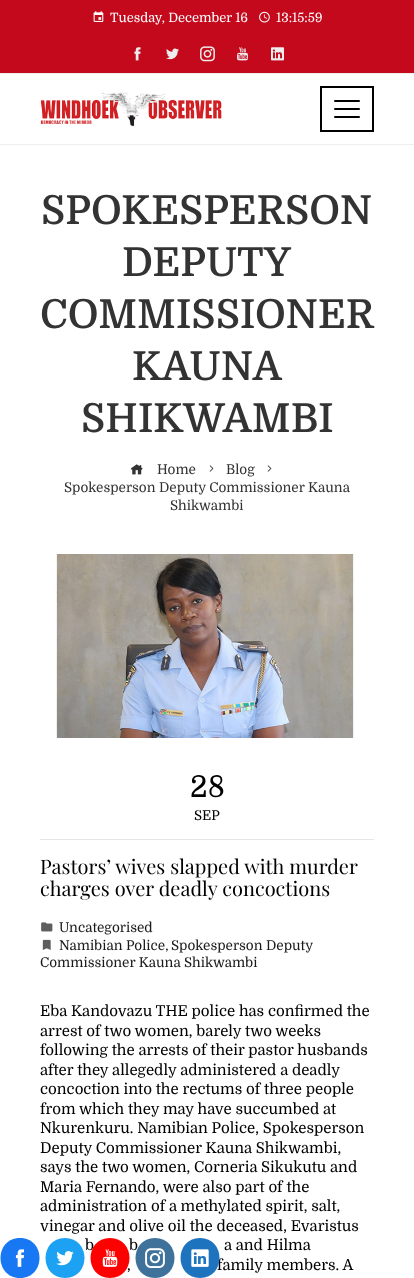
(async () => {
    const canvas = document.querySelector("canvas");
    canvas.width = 414;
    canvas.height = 1278;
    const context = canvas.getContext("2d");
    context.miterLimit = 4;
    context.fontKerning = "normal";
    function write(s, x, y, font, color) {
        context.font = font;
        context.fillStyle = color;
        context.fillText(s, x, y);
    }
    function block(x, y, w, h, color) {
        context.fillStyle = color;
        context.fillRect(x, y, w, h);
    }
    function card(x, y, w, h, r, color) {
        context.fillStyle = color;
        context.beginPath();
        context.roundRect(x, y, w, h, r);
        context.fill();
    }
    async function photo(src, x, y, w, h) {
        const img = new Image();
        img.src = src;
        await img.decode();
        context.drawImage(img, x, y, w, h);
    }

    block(0, 0, 414, 1278, "rgb(255, 255, 255)");
    block(0, 0, 414, 73, "rgb(196, 9, 28)");
    await photo("media/1.png", 93, 11, 11, 11);
    write("Tuesday, December 16", 110, 22, "12.9px Domine", "rgb(255, 255, 255)");
    await photo("media/2.png", 259, 11, 11, 12);
    write("13:15:59", 276, 22, "12.9px Domine", "rgb(255, 255, 255)");
    await photo("media/3.png", 134, 47, 7, 14);
    await photo("media/4.png", 166, 48, 13, 12);
    await photo("media/5.png", 200, 46, 15, 16);
    await photo("media/6.png", 237, 47, 11, 14);
    await photo("media/7.png", 271, 47, 13, 14);
    block(0, 73, 414, 1, "rgb(238, 238, 238)");
    block(0, 144, 414, 1, "rgb(238, 238, 238)");
    await photo("media/8.png", 40, 92, 182, 35);
    context.strokeStyle = "rgb(0, 0, 0)";
    context.lineWidth = 2;
    context.strokeRect(321, 87, 52, 44);
    card(334, 100, 26, 2, 1, "rgb(0, 0, 0)");
    card(334, 108, 26, 2, 1, "rgb(0, 0, 0)");
    card(334, 116, 26, 2, 1, "rgb(0, 0, 0)");
    write("SPOKESPERSON", 41, 224, "600 40px Domine", "rgb(51, 51, 51)");
    write("DEPUTY", 122, 276, "600 40px Domine", "rgb(51, 51, 51)");
    write("COMMISSIONER", 40, 328, "600 40px Domine", "rgb(51, 51, 51)");
    write("KAUNA", 132, 380, "600 40px Domine", "rgb(51, 51, 51)");
    write("SHIKWAMBI", 81, 432, "600 40px Domine", "rgb(51, 51, 51)");
    await photo("media/9.png", 130, 464, 13, 11);
    write("Home", 157, 474, "13.5px Domine", "rgb(51, 51, 51)");
    await photo("media/10.png", 209, 465, 5, 7);
    write("Blog", 226, 474, "13.5px Domine", "rgb(51, 51, 51)");
    await photo("media/10.png", 267, 465, 5, 7);
    write("Spokesperson Deputy Commissioner Kauna", 64, 492, "13.5px Domine", "rgb(51, 51, 51)");
    write("Shikwambi", 170, 510, "13.5px Domine", "rgb(51, 51, 51)");
    await photo("media/11.png", 40, 554, 334, 184);
    block(40, 839, 334, 1, "rgb(230, 230, 230)");
    write("28", 190, 797, "30px Domine", "rgb(0, 0, 0)");
    write("SEP", 194, 820, "13.5px Domine", "rgb(0, 0, 0)");
    write("Pastors’ wives slapped with murder", 40, 874, "20px Playfair Display", "rgb(0, 0, 0)");
    write("charges over deadly concoctions", 40, 896, "20px Playfair Display", "rgb(0, 0, 0)");
    await photo("media/12.png", 41, 922, 12, 10);
    write("Uncategorised", 59, 932, "13.5px Domine", "rgb(26, 26, 26)");
    await photo("media/13.png", 42, 939, 9, 11);
    write("Namibian Police,", 59, 950, "13.5px Domine", "rgb(26, 26, 26)");
    write("Spokesperson Deputy", 171, 950, "13.5px Domine", "rgb(26, 26, 26)");
    write("Commissioner Kauna Shikwambi", 40, 967, "13.5px Domine", "rgb(26, 26, 26)");
    write("Eba Kandovazu THE police has confirmed the", 40, 1016, "15px Domine", "rgb(0, 0, 0)");
    write("arrest of two women, barely two weeks", 40, 1036, "15px Domine", "rgb(0, 0, 0)");
    write("following the arrests of their pastor husbands", 40, 1055, "15px Domine", "rgb(0, 0, 0)");
    write("after they allegedly administered a deadly", 40, 1075, "15px Domine", "rgb(0, 0, 0)");
    write("concoction into the rectums of three people", 40, 1094, "15px Domine", "rgb(0, 0, 0)");
    write("from which they may have succumbed at", 40, 1114, "15px Domine", "rgb(0, 0, 0)");
    write("Nkurenkuru. Namibian Police, Spokesperson", 40, 1133, "15px Domine", "rgb(0, 0, 0)");
    write("Deputy Commissioner Kauna Shikwambi,", 40, 1153, "15px Domine", "rgb(0, 0, 0)");
    write("says the two women, Corneria Sikukutu and", 40, 1172, "15px Domine", "rgb(0, 0, 0)");
    write("Maria Fernando, were also part of the", 40, 1192, "15px Domine", "rgb(0, 0, 0)");
    write("administration of a methylated spirit, salt,", 40, 1211, "15px Domine", "rgb(0, 0, 0)");
    write("vinegar and olive oil the deceased, Evaristus", 40, 1231, "15px Domine", "rgb(0, 0, 0)");
    write("b", 85, 1250, "15px Domine", "rgb(0, 0, 0)");
    write("b", 129, 1250, "15px Domine", "rgb(0, 0, 0)");
    write("a and Hilma", 224, 1250, "15px Domine", "rgb(0, 0, 0)");
    write(",", 127, 1270, "15px Domine", "rgb(0, 0, 0)");
    write("family members. A", 217, 1270, "15px Domine", "rgb(0, 0, 0)");
    context.fillStyle = "rgb(24, 119, 242)";
    context.beginPath();
    context.moveTo(20, 1238);
    context.bezierCurveTo(46, 1238, 46, 1278, 20, 1278);
    context.bezierCurveTo(-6, 1278, -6, 1238, 20, 1238);
    context.closePath();
    context.fill();
    await photo("media/14.png", 15, 1249, 10, 18);
    context.fillStyle = "rgb(29, 161, 242)";
    context.beginPath();
    context.moveTo(65, 1238);
    context.bezierCurveTo(91, 1238, 91, 1278, 65, 1278);
    context.bezierCurveTo(39, 1278, 39, 1238, 65, 1238);
    context.closePath();
    context.fill();
    await photo("media/15.png", 56, 1251, 18, 15);
    context.fillStyle = "rgb(255, 0, 0)";
    context.beginPath();
    context.moveTo(110, 1238);
    context.bezierCurveTo(136, 1238, 136, 1278, 110, 1278);
    context.bezierCurveTo(84, 1278, 84, 1238, 110, 1238);
    context.closePath();
    context.fill();
    await photo("media/16.png", 102, 1249, 16, 18);
    context.fillStyle = "rgb(63, 114, 155)";
    context.beginPath();
    context.moveTo(155, 1238);
    context.bezierCurveTo(181, 1238, 181, 1278, 155, 1278);
    context.bezierCurveTo(129, 1278, 129, 1238, 155, 1238);
    context.closePath();
    context.fill();
    await photo("media/17.png", 145, 1248, 20, 20);
    context.fillStyle = "rgb(30, 115, 190)";
    context.beginPath();
    context.moveTo(200, 1238);
    context.bezierCurveTo(226, 1238, 226, 1278, 200, 1278);
    context.bezierCurveTo(174, 1278, 174, 1238, 200, 1238);
    context.closePath();
    context.fill();
    await photo("media/18.png", 191, 1249, 18, 18);
})();
